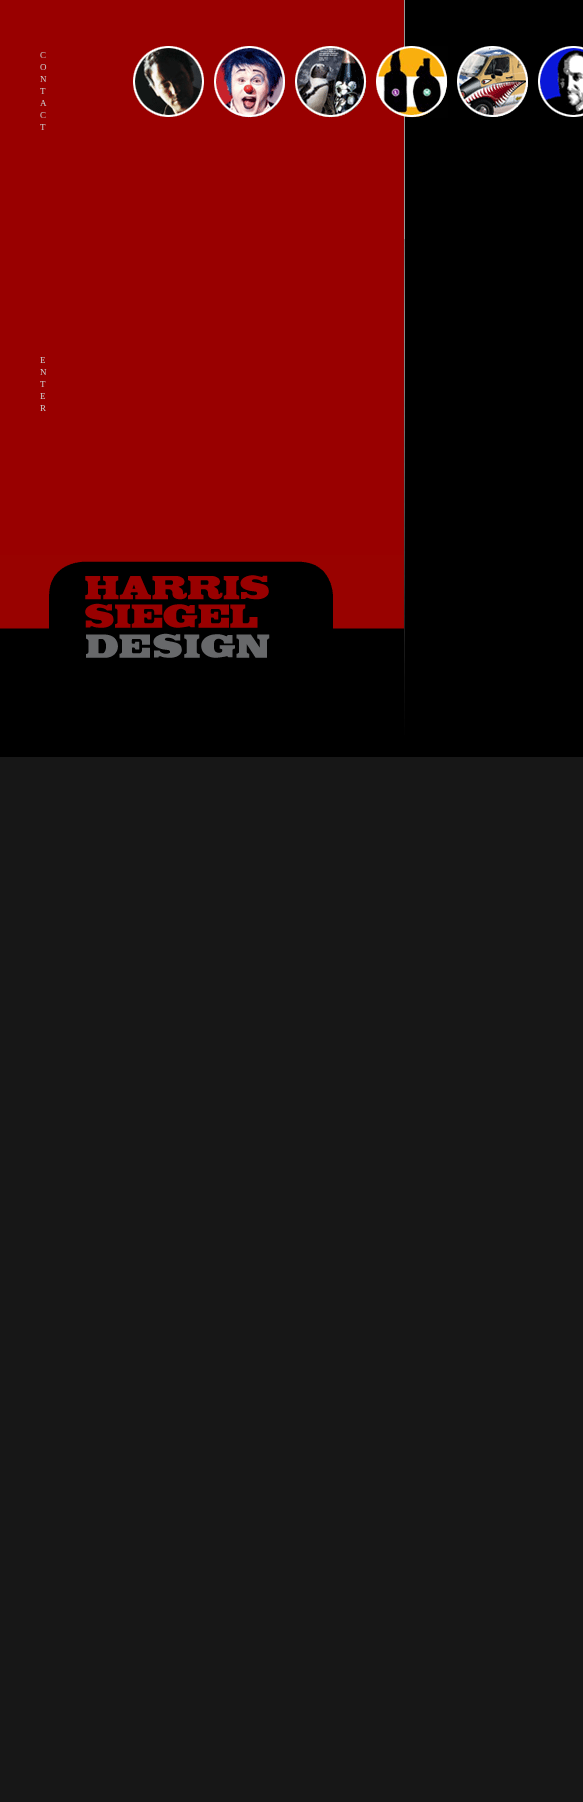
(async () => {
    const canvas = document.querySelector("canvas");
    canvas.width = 583;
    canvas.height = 1802;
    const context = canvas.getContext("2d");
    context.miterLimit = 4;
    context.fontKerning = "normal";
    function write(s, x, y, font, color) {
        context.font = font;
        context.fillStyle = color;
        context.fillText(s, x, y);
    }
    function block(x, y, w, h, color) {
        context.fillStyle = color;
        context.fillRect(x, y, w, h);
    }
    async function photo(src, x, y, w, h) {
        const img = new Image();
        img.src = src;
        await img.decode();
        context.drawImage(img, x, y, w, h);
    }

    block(0, 0, 583, 1802, "rgb(23, 23, 23)");
    block(0, 0, 583, 757, "rgb(0, 0, 0)");
    block(404, 0, 1, 239, "rgb(153, 153, 153)");
    block(0, 0, 404, 555, "rgb(153, 0, 0)");
    write("C", 40, 58, "9px Liberation Serif", "rgb(204, 204, 204)");
    write("O", 40, 70, "9px Liberation Serif", "rgb(204, 204, 204)");
    write("N", 40, 82, "9px Liberation Serif", "rgb(204, 204, 204)");
    write("T", 40, 94, "9px Liberation Serif", "rgb(204, 204, 204)");
    write("A", 40, 106, "9px Liberation Serif", "rgb(204, 204, 204)");
    write("C", 40, 118, "9px Liberation Serif", "rgb(204, 204, 204)");
    write("T", 40, 130, "9px Liberation Serif", "rgb(204, 204, 204)");
    await photo("media/1.png", 133, 46, 71, 71);
    await photo("media/2.png", 214, 46, 71, 72);
    await photo("media/3.png", 295, 46, 72, 72);
    await photo("media/4.png", 376, 46, 72, 72);
    await photo("media/5.png", 457, 46, 71, 71);
    await photo("media/6.png", 538, 46, 45, 71);
    write("E", 40, 363, "9px Liberation Serif", "rgb(204, 204, 204)");
    write("N", 40, 375, "9px Liberation Serif", "rgb(204, 204, 204)");
    write("T", 40, 387, "9px Liberation Serif", "rgb(204, 204, 204)");
    write("E", 40, 399, "9px Liberation Serif", "rgb(204, 204, 204)");
    write("R", 40, 411, "9px Liberation Serif", "rgb(204, 204, 204)");
    await photo("media/7.png", 404, 239, 1, 500);
    await photo("media/8.png", 0, 555, 404, 103);
})();
